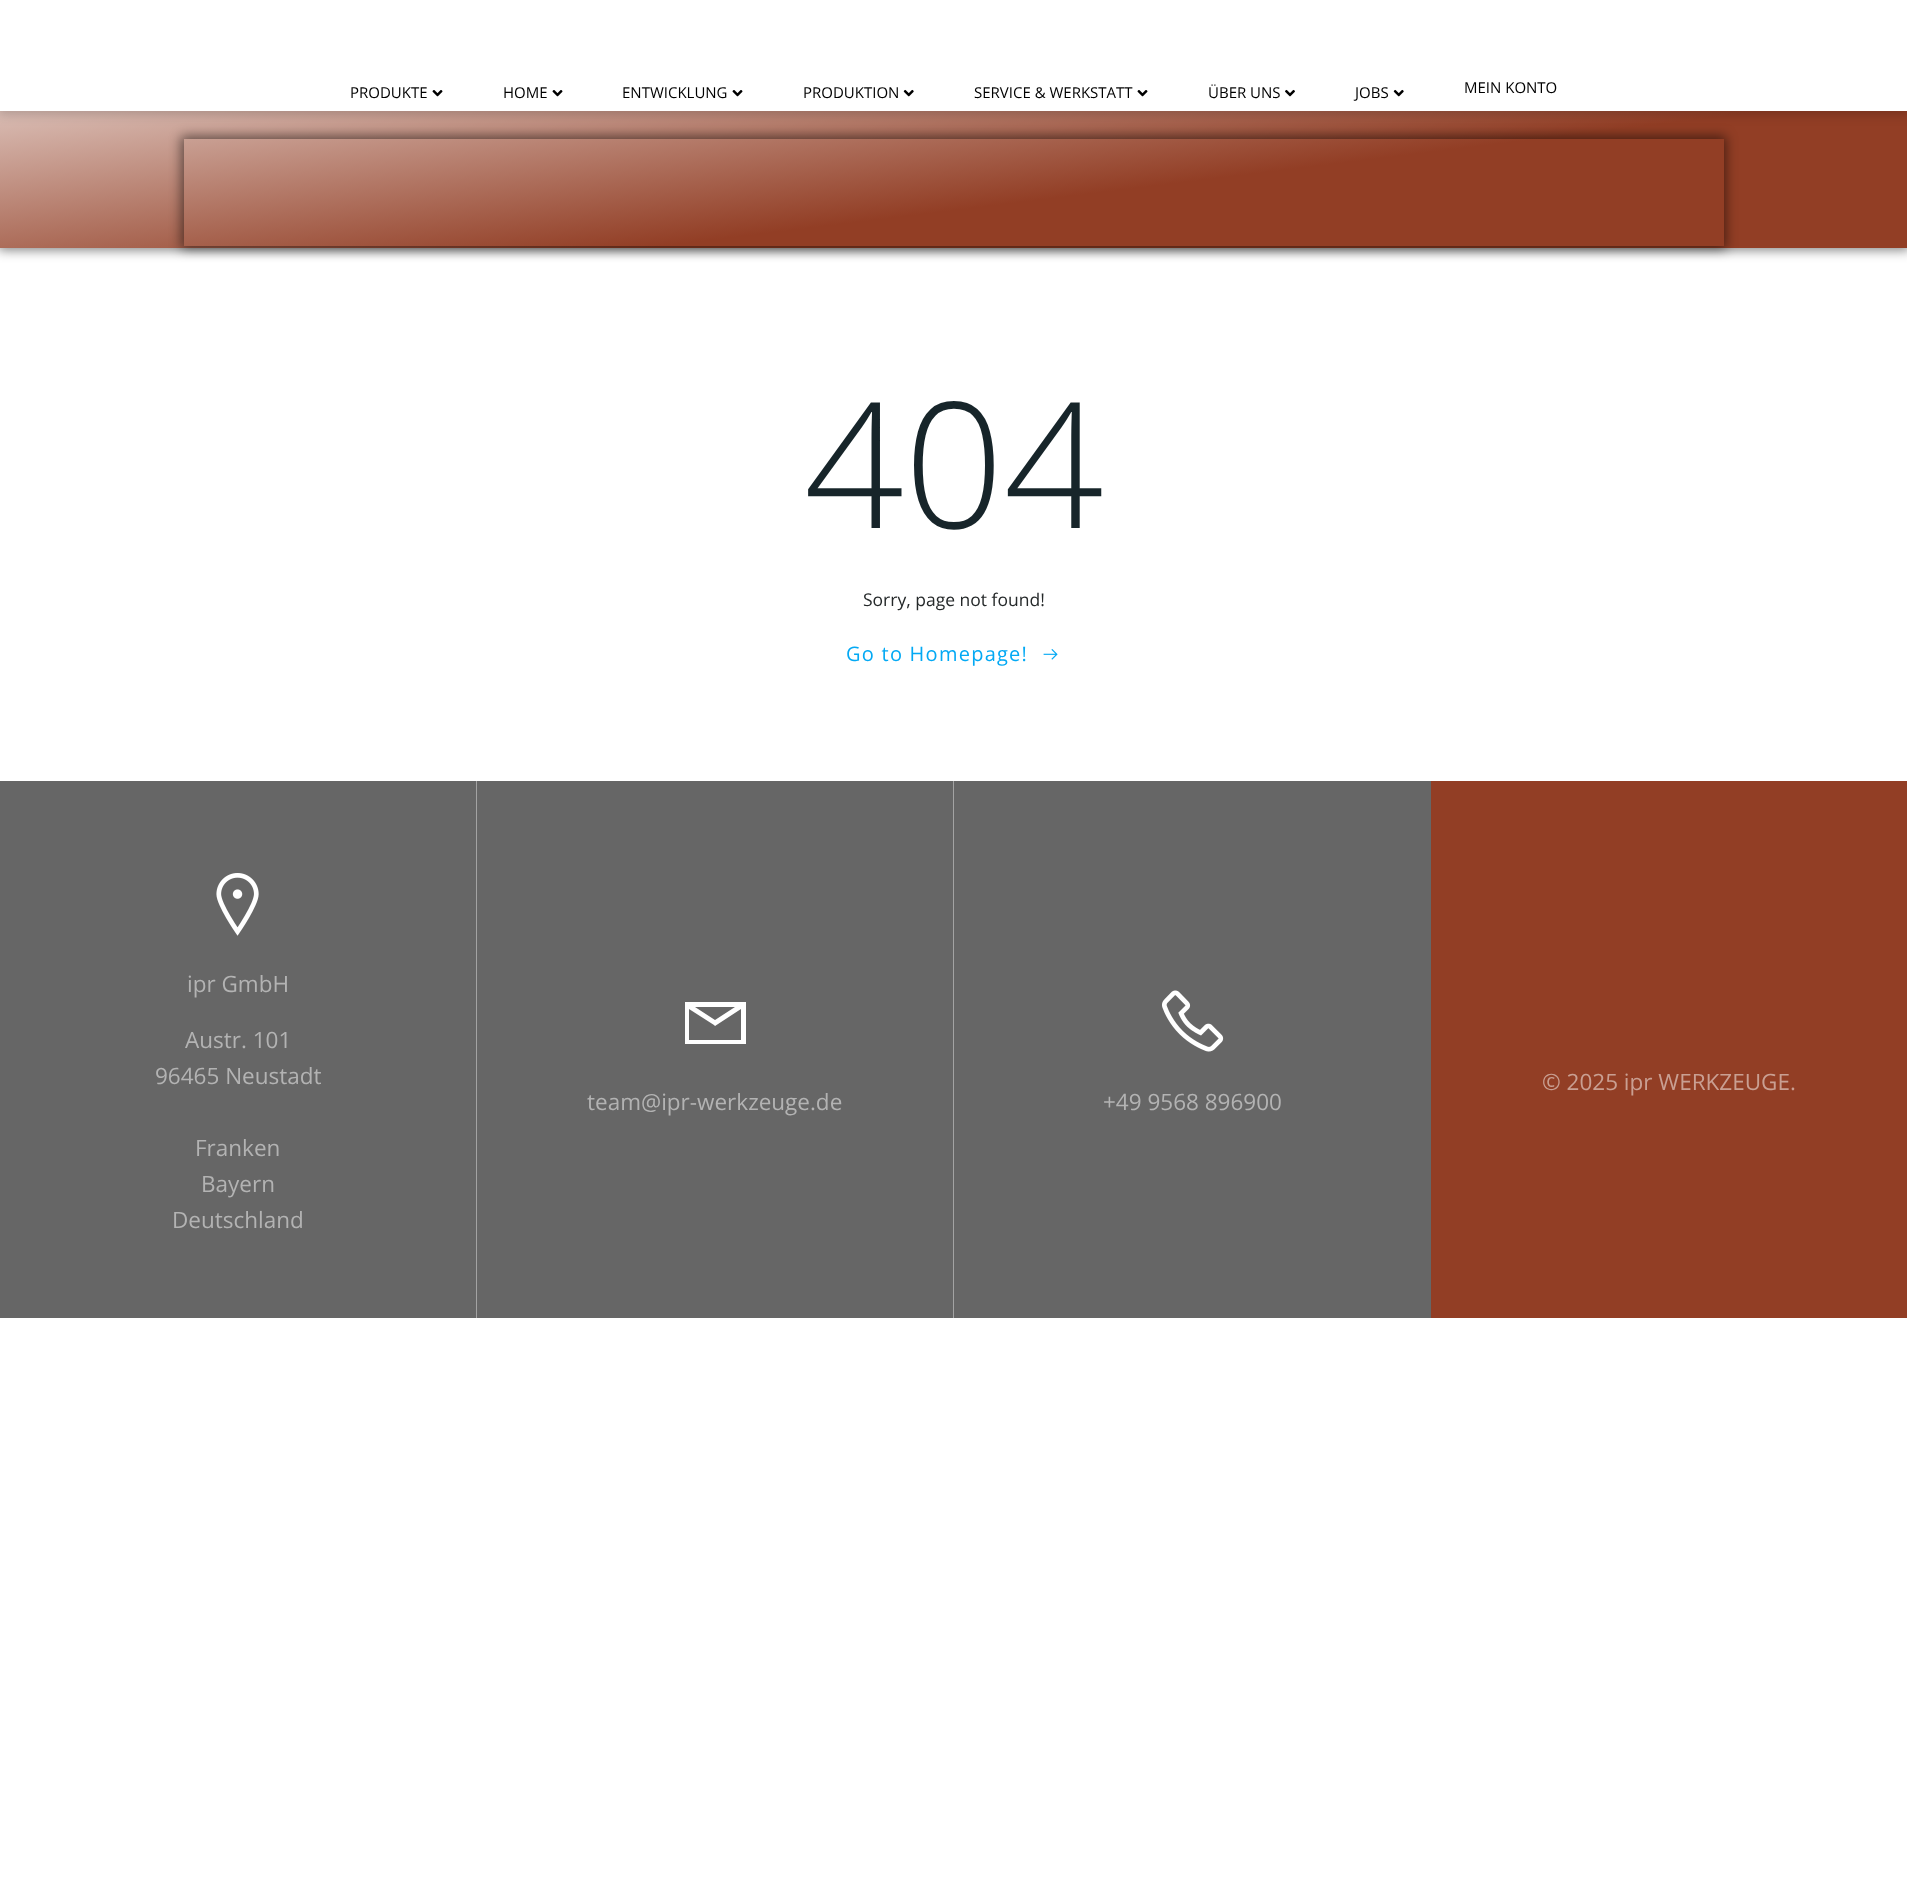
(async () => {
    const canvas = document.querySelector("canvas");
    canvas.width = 1907;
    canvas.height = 1882;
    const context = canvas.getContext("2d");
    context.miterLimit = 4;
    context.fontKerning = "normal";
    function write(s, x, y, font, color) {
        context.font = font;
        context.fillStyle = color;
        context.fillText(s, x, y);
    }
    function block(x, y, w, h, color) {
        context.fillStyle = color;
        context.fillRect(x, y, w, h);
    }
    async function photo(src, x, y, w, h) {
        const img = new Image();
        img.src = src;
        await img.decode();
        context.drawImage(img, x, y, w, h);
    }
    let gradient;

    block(0, 0, 1907, 1882, "rgb(255, 255, 255)");
    context.save();
    context.beginPath();
    context.moveTo(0, 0);
    context.lineTo(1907, 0);
    context.lineTo(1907, 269);
    context.lineTo(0, 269);
    context.closePath();
    context.moveTo(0, 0);
    context.lineTo(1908, 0);
    context.lineTo(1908, 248);
    context.lineTo(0, 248);
    context.closePath();
    context.clip("evenodd");
    context.fillStyle = "rgba(0, 0, 0, 0.5)";
    context.filter = "blur(6px)";
    context.beginPath();
    context.rect(-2, -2, 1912, 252);
    context.fill();
    context.filter = "none";
    context.restore();
    gradient = context.createLinearGradient(983, 361, 925, -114);
    gradient.addColorStop(0.32, "rgb(146, 62, 37)");
    gradient.addColorStop(1, "rgba(146, 62, 37, 0)");
    context.fillStyle = gradient;
    context.fillRect(0, 111, 1907, 137);
    context.save();
    context.beginPath();
    context.moveTo(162, 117);
    context.lineTo(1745, 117);
    context.lineTo(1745, 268);
    context.lineTo(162, 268);
    context.closePath();
    context.moveTo(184, 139);
    context.lineTo(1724, 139);
    context.lineTo(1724, 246);
    context.lineTo(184, 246);
    context.closePath();
    context.clip("evenodd");
    context.fillStyle = "rgba(0, 0, 0, 0.5)";
    context.filter = "blur(6px)";
    context.beginPath();
    context.rect(181, 136, 1545, 113);
    context.fill();
    context.filter = "none";
    context.restore();
    context.fillStyle = "rgba(0, 0, 0, 0.2)";
    context.filter = "blur(6px)";
    context.beginPath();
    context.rect(-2, -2, 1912, 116);
    context.fill();
    context.filter = "none";
    block(0, 0, 1907, 111, "rgb(255, 255, 255)");
    write("PRODUKTE", 350, 98, "15px Open Sans", "rgb(0, 0, 0)");
    await photo("media/1.png", 432, 90, 11, 7);
    write("HOME", 503, 98, "15px Open Sans", "rgb(0, 0, 0)");
    await photo("media/1.png", 552, 90, 11, 7);
    write("ENTWICKLUNG", 622, 98, "15px Open Sans", "rgb(0, 0, 0)");
    await photo("media/1.png", 732, 90, 11, 7);
    write("PRODUKTION", 803, 98, "15px Open Sans", "rgb(0, 0, 0)");
    await photo("media/2.png", 903, 89, 11, 8);
    write("SERVICE & WERKSTATT", 974, 98, "15px Open Sans", "rgb(0, 0, 0)");
    await photo("media/1.png", 1137, 90, 11, 7);
    write("ÜBER UNS", 1208, 98, "15px Open Sans", "rgb(0, 0, 0)");
    await photo("media/3.png", 1285, 89, 10, 8);
    write("JOBS", 1355, 98, "15px Open Sans", "rgb(0, 0, 0)");
    await photo("media/2.png", 1393, 89, 11, 8);
    write("MEIN KONTO", 1464, 93, "15px Open Sans", "rgb(0, 0, 0)");
    write("404", 804, 528, "300 175px Open Sans", "rgb(23, 37, 42)");
    write("Sorry, page not found!", 863, 606, "17.5px Open Sans", "rgb(37, 41, 42)");
    context.letterSpacing = "1.25px";
    write("Go to Homepage!", 846, 661, "20px Open Sans", "rgb(3, 169, 244)");
    await photo("media/4.png", 1043, 649, 15, 11);
    block(0, 781, 1431, 537, "rgb(102, 102, 102)");
    block(476, 781, 1, 537, "rgb(163, 163, 163)");
    await photo("media/5.png", 216, 873, 43, 63);
    context.letterSpacing = "0px";
    write("ipr GmbH", 187, 992, "22.5px Open Sans", "rgb(179, 179, 179)");
    write("Austr. 101", 185, 1048, "22.5px Open Sans", "rgb(179, 179, 179)");
    write("96465 Neustadt", 155, 1084, "22.5px Open Sans", "rgb(179, 179, 179)");
    write("Franken", 195, 1156, "22.5px Open Sans", "rgb(179, 179, 179)");
    write("Bayern", 201, 1192, "22.5px Open Sans", "rgb(179, 179, 179)");
    write("Deutschland", 172, 1228, "22.5px Open Sans", "rgb(179, 179, 179)");
    block(1431, 781, 476, 537, "rgb(146, 62, 37)");
    write("© 2025 ipr WERKZEUGE.", 1542, 1090, "22.5px Open Sans", "rgb(201, 159, 146)");
    block(953, 781, 1, 537, "rgb(163, 163, 163)");
    context.fillStyle = "rgb(255, 255, 255)";
    context.beginPath();
    context.moveTo(685, 1002);
    context.lineTo(746, 1002);
    context.lineTo(746, 1044);
    context.lineTo(685, 1044);
    context.closePath();
    context.moveTo(695, 1007);
    context.lineTo(715, 1020);
    context.lineTo(735, 1007);
    context.closePath();
    context.moveTo(689, 1009);
    context.lineTo(689, 1040);
    context.lineTo(741, 1040);
    context.lineTo(741, 1009);
    context.lineTo(715, 1026);
    context.lineTo(714, 1025);
    context.closePath();
    context.fill();
    write("team@ipr-werkzeuge.de", 587, 1110, "22.5px Open Sans", "rgb(179, 179, 179)");
    await photo("media/6.png", 1162, 990, 62, 62);
    write("+49 9568 896900", 1103, 1110, "22.5px Open Sans", "rgb(179, 179, 179)");
})();
